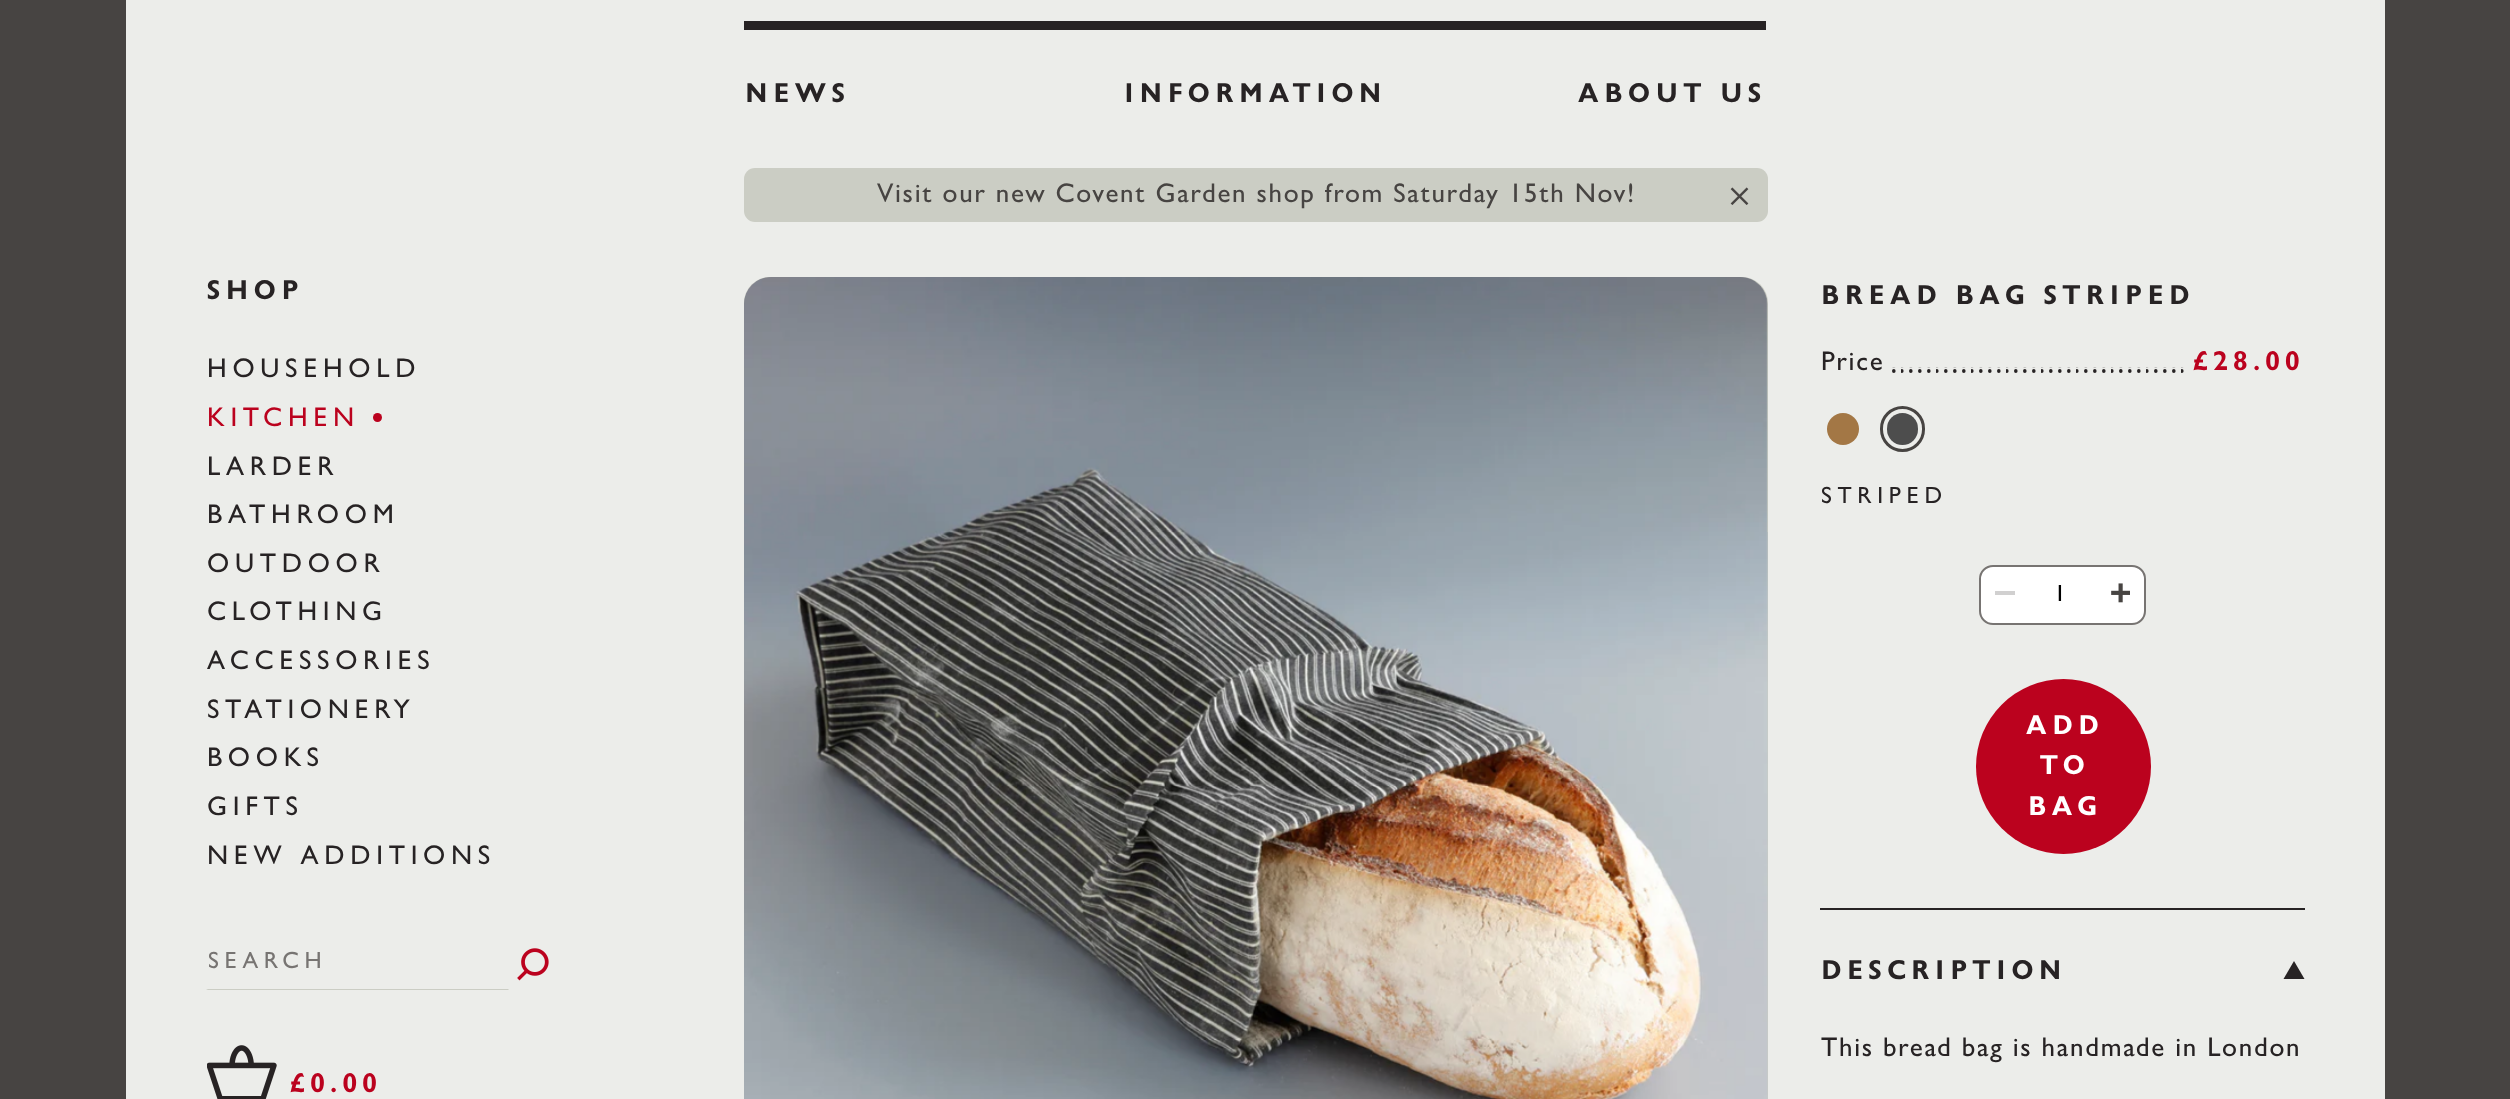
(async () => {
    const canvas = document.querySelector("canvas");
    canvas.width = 2510;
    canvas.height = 1099;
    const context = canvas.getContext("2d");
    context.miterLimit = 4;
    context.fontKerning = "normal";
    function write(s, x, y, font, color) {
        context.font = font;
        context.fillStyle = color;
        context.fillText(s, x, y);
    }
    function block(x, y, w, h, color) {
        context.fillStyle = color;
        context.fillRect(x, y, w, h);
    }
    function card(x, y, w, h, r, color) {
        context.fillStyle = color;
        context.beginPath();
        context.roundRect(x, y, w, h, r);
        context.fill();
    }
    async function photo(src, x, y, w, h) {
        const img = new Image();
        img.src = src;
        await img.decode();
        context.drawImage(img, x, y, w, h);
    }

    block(0, 0, 2510, 1099, "rgb(71, 68, 66)");
    block(126, 0, 2259, 1099, "rgb(236, 237, 234)");
    block(744, 21, 1022, 9, "rgb(39, 35, 36)");
    context.letterSpacing = "5.7px";
    write("NEWS", 745, 102, "bold 27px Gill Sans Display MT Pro", "rgb(39, 35, 36)");
    write("INFORMATION", 1124, 102, "bold 27px Gill Sans Display MT Pro", "rgb(39, 35, 36)");
    write("ABOUT US", 1578, 102, "bold 27px Gill Sans Display MT Pro", "rgb(39, 35, 36)");
    card(744, 168, 1024, 54, 11, "rgb(203, 205, 196)");
    context.letterSpacing = "1.7px";
    write("Visit our new Covent Garden shop from Saturday 15th Nov!", 877, 202, "500 27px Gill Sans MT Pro", "rgb(71, 68, 66)");
    await photo("media/1.png", 1730, 187, 19, 18);
    context.letterSpacing = "5.7px";
    write("SHOP", 207, 299, "bold 27px Gill Sans Display MT Pro", "rgb(39, 35, 36)");
    write("HOUSEHOLD", 207, 377, "500 27px Gill Sans MT Pro", "rgb(39, 35, 36)");
    write("KITCHEN", 207, 426, "500 27px Gill Sans MT Pro", "rgb(187, 2, 30)");
    context.beginPath();
    context.arc(377.5, 417.5, 4.5, 0, Math.PI * 2);
    context.fill();
    write("LARDER", 207, 475, "500 27px Gill Sans MT Pro", "rgb(39, 35, 36)");
    write("BATHROOM", 207, 523, "500 27px Gill Sans MT Pro", "rgb(39, 35, 36)");
    write("OUTDOOR", 207, 572, "500 27px Gill Sans MT Pro", "rgb(39, 35, 36)");
    write("CLOTHING", 207, 620, "500 27px Gill Sans MT Pro", "rgb(39, 35, 36)");
    write("ACCESSORIES", 207, 669, "500 27px Gill Sans MT Pro", "rgb(39, 35, 36)");
    write("STATIONERY", 207, 718, "500 27px Gill Sans MT Pro", "rgb(39, 35, 36)");
    write("BOOKS", 207, 766, "500 27px Gill Sans MT Pro", "rgb(39, 35, 36)");
    write("GIFTS", 207, 815, "500 27px Gill Sans MT Pro", "rgb(39, 35, 36)");
    write("NEW ADDITIONS", 207, 864, "500 27px Gill Sans MT Pro", "rgb(39, 35, 36)");
    context.fillStyle = "rgb(203, 205, 196)";
    context.beginPath();
    context.moveTo(509, 990);
    context.lineTo(206, 990);
    context.lineTo(208, 989);
    context.lineTo(508, 989);
    context.closePath();
    context.fill();
    write("SEARCH", 208, 968, "500 23.5px Gill Sans MT Pro", "rgb(119, 116, 114)");
    await photo("media/2.png", 517, 948, 32, 33);
    await photo("media/3.png", 207, 1045, 70, 54);
    write("£0.00", 290, 1092, "bold 27px Gill Sans Display MT Pro", "rgb(187, 2, 30)");
    card(744, 277, 1024, 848, 26, "rgb(203, 205, 196)");
    await photo("media/4.png", 744, 277, 1024, 822);
    write("BREAD BAG STRIPED", 1821, 304, "bold 27px Gill Sans Display MT Pro", "rgb(39, 35, 36)");
    context.letterSpacing = "1.7px";
    write("Price", 1821, 370, "500 27px Gill Sans MT Pro", "rgb(39, 35, 36)");
    await photo("media/5.png", 1892, 367, 292, 6);
    context.letterSpacing = "5.7px";
    write("£28.00", 2193, 370, "bold 27px Gill Sans Display MT Pro", "rgb(187, 2, 30)");
    context.fillStyle = "rgb(163, 119, 69)";
    context.beginPath();
    context.arc(1843, 429, 16, 0, Math.PI * 2);
    context.fill();
    context.beginPath();
    context.roundRect(1881.5, 407.5, 42, 43, 21);
    context.strokeStyle = "rgb(71, 68, 66)";
    context.lineWidth = 3;
    context.stroke();
    card(1887, 413, 31, 32, 15.5, "rgb(77, 77, 77)");
    write("STRIPED", 1821, 503, "500 23.5px Gill Sans MT Pro", "rgb(39, 35, 36)");
    context.fillStyle = "rgb(255, 255, 255)";
    context.beginPath();
    context.roundRect(1980, 566, 165, 58, 13);
    context.fill();
    context.strokeStyle = "rgb(119, 116, 114)";
    context.lineWidth = 2;
    context.stroke();
    block(1995, 591, 20, 4, "rgb(209, 208, 208)");
    write("1", 2054, 601, "500 23.5px Gill Sans MT Pro", "rgb(0, 0, 0)");
    await photo("media/6.png", 2111, 583, 19, 20);
    context.fillStyle = "rgb(187, 2, 30)";
    context.beginPath();
    context.arc(2063.5, 766.5, 87.5, 0, Math.PI * 2);
    context.fill();
    write("ADD", 2026, 734, "bold 27px Gill Sans Display MT Pro", "rgb(255, 255, 255)");
    write("TO", 2040, 774, "bold 27px Gill Sans Display MT Pro", "rgb(255, 255, 255)");
    write("BAG", 2028, 815, "bold 27px Gill Sans Display MT Pro", "rgb(255, 255, 255)");
    block(1820, 908, 485, 2, "rgb(39, 35, 36)");
    write("DESCRIPTION", 1821, 979, "bold 27px Gill Sans Display MT Pro", "rgb(39, 35, 36)");
    context.beginPath();
    context.moveTo(2294, 961);
    context.lineTo(2304.5, 979);
    context.lineTo(2283.5, 979);
    context.closePath();
    context.fill();
    context.letterSpacing = "1.7px";
    write("This bread bag is handmade in London", 1821, 1056, "500 27px Gill Sans MT Pro", "rgb(39, 35, 36)");
})();
